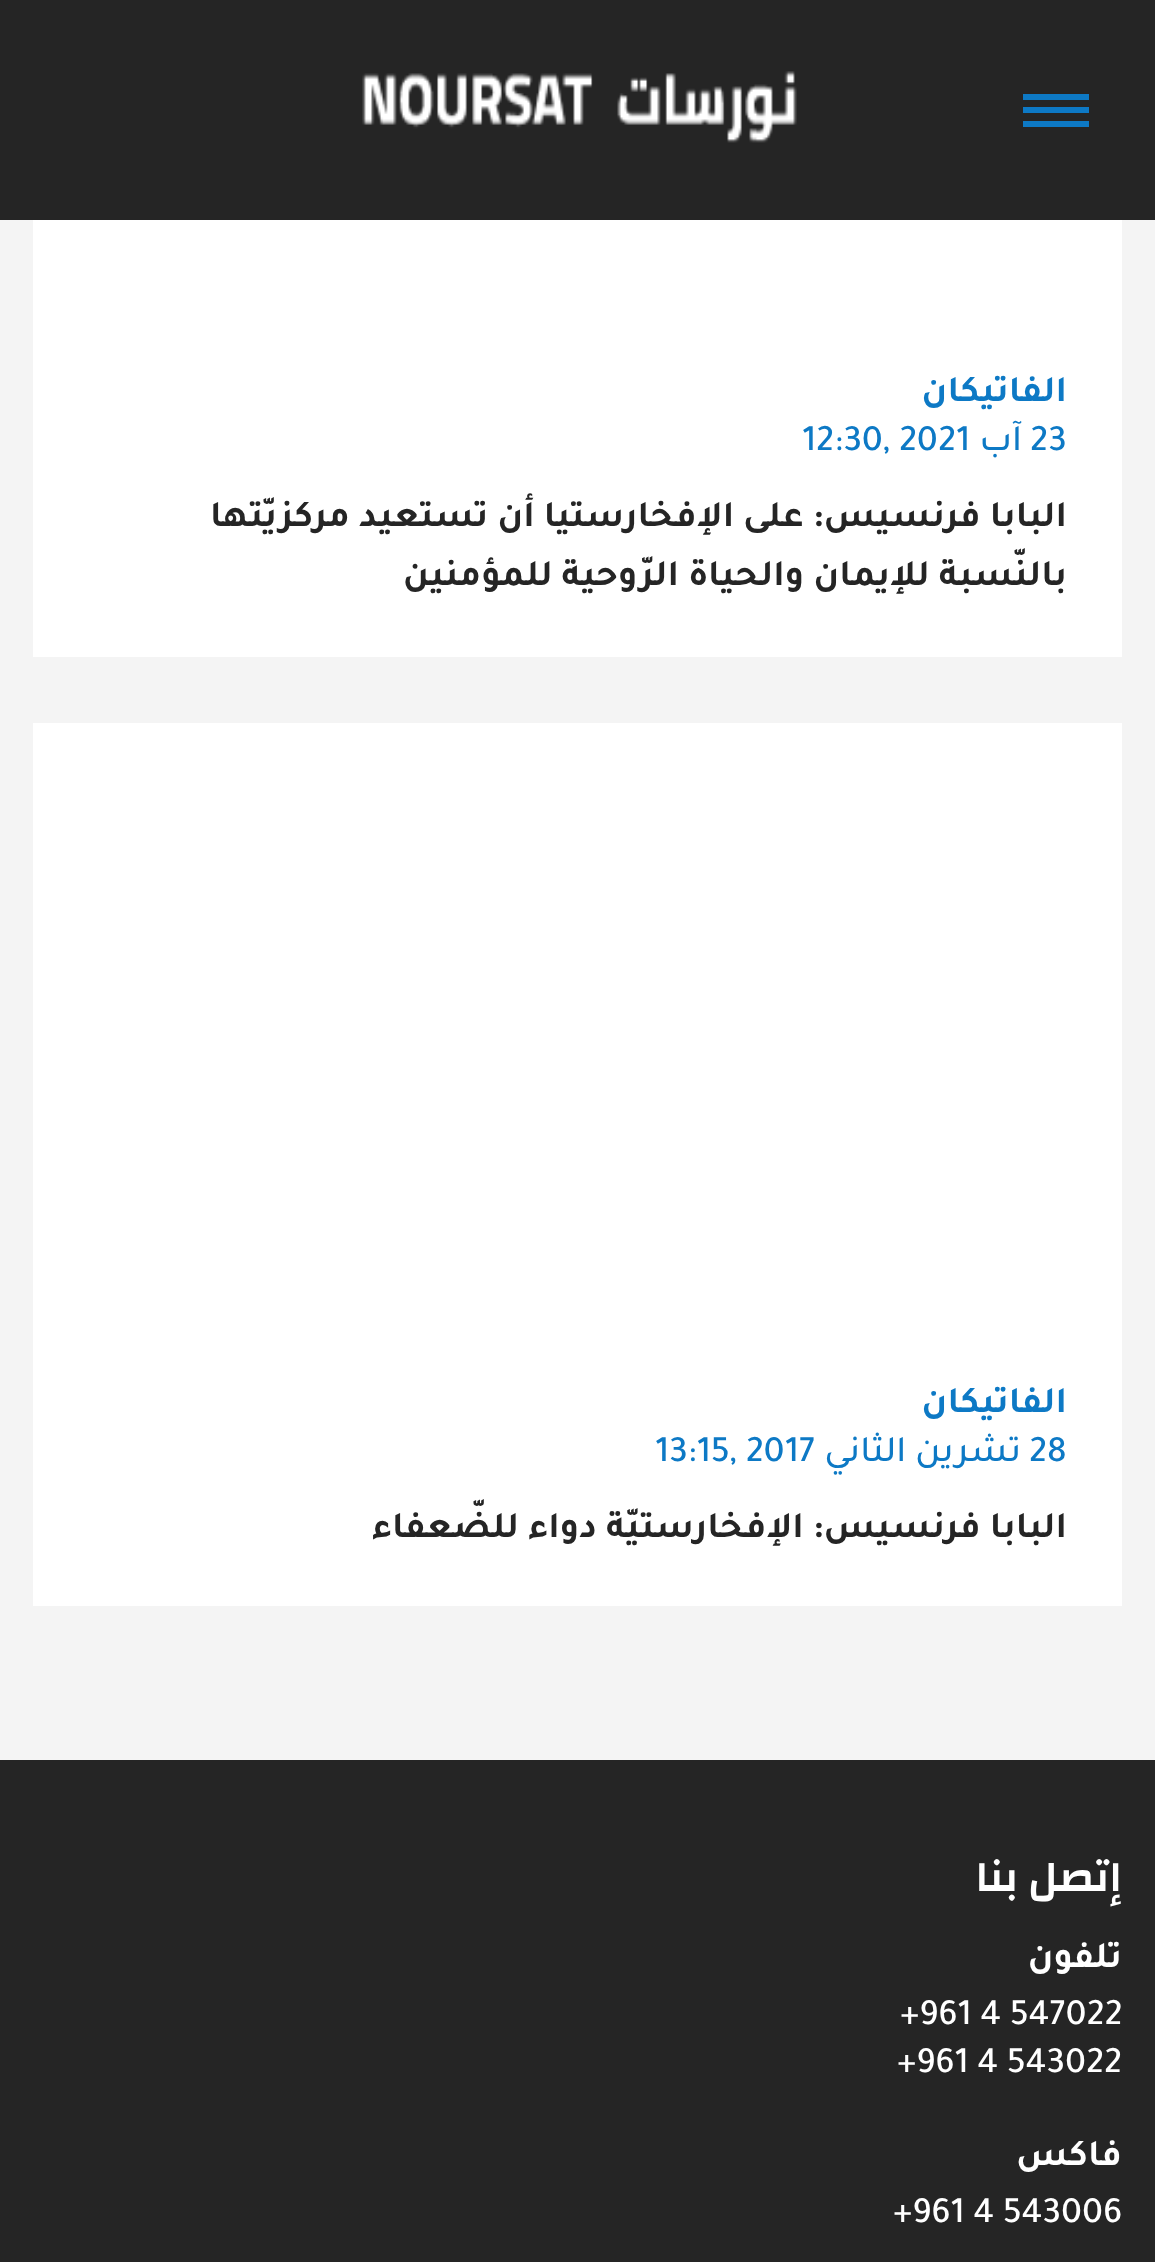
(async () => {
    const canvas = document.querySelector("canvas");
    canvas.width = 1155;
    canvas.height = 2262;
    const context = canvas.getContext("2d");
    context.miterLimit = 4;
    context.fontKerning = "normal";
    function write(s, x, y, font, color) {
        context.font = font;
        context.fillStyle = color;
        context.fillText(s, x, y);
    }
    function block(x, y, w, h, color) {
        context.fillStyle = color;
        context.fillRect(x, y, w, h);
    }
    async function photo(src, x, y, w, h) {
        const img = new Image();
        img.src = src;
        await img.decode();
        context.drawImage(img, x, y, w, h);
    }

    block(0, 0, 1155, 2262, "rgb(244, 244, 244)");
    block(0, 0, 1155, 220, "rgb(37, 37, 37)");
    block(1023, 107, 66, 6, "rgb(13, 121, 197)");
    block(1023, 94, 66, 6, "rgb(13, 121, 197)");
    block(1023, 121, 66, 6, "rgb(13, 121, 197)");
    await photo("media/1.png", 362, 71, 435, 72);
    block(33, 220, 1089, 437, "rgb(255, 255, 255)");
    context.direction = "rtl";
    write("الفاتيكان", 1067, 401, "bold 37.4px Tajawal", "rgb(13, 121, 197)");
    context.direction = "ltr";
    write("23", 1030, 450, "500 37.4px Tajawal", "rgb(13, 121, 197)");
    context.direction = "rtl";
    write("آب", 1022, 450, "500 37.4px Tajawal", "rgb(13, 121, 197)");
    context.direction = "ltr";
    write("12:30, 2021", 802, 450, "500 37.4px Tajawal", "rgb(13, 121, 197)");
    context.direction = "rtl";
    write("البابا فرنسيس: على الإفخارستيا أن تستعيد مركزيّتها", 1067, 526, "bold 37.4px Tajawal", "rgb(37, 37, 37)");
    write("بالنّسبة للإيمان والحياة الرّوحية للمؤمنين", 1067, 585, "bold 37.4px Tajawal", "rgb(37, 37, 37)");
    block(33, 723, 1089, 883, "rgb(255, 255, 255)");
    write("الفاتيكان", 1067, 1412, "bold 37.4px Tajawal", "rgb(13, 121, 197)");
    context.direction = "ltr";
    write("28", 1029, 1461, "500 37.4px Tajawal", "rgb(13, 121, 197)");
    context.direction = "rtl";
    write("تشرين الثاني", 1021, 1461, "500 37.4px Tajawal", "rgb(13, 121, 197)");
    context.direction = "ltr";
    write("13:15, 2017", 655, 1461, "500 37.4px Tajawal", "rgb(13, 121, 197)");
    context.direction = "rtl";
    write("البابا فرنسيس: الإفخارستيّة دواء للضّعفاء", 1067, 1537, "bold 37.4px Tajawal", "rgb(37, 37, 37)");
    block(0, 1760, 1155, 502, "rgb(37, 37, 37)");
    write("إتصل بنا", 1122, 1891, "600 44px Changa", "rgb(255, 255, 255)");
    write("تلفون", 1122, 1967, "bold 37.4px Tajawal", "rgb(255, 255, 255)");
    context.direction = "ltr";
    write("+961 4 547022", 900, 2024, "500 37.4px Tajawal", "rgb(255, 255, 255)");
    write("+961 4 543022", 897, 2072, "500 37.4px Tajawal", "rgb(255, 255, 255)");
    context.direction = "rtl";
    write("فاكس", 1122, 2165, "bold 37.4px Tajawal", "rgb(255, 255, 255)");
    context.direction = "ltr";
    write("+961 4 543006", 893, 2222, "500 37.4px Tajawal", "rgb(255, 255, 255)");
})();
